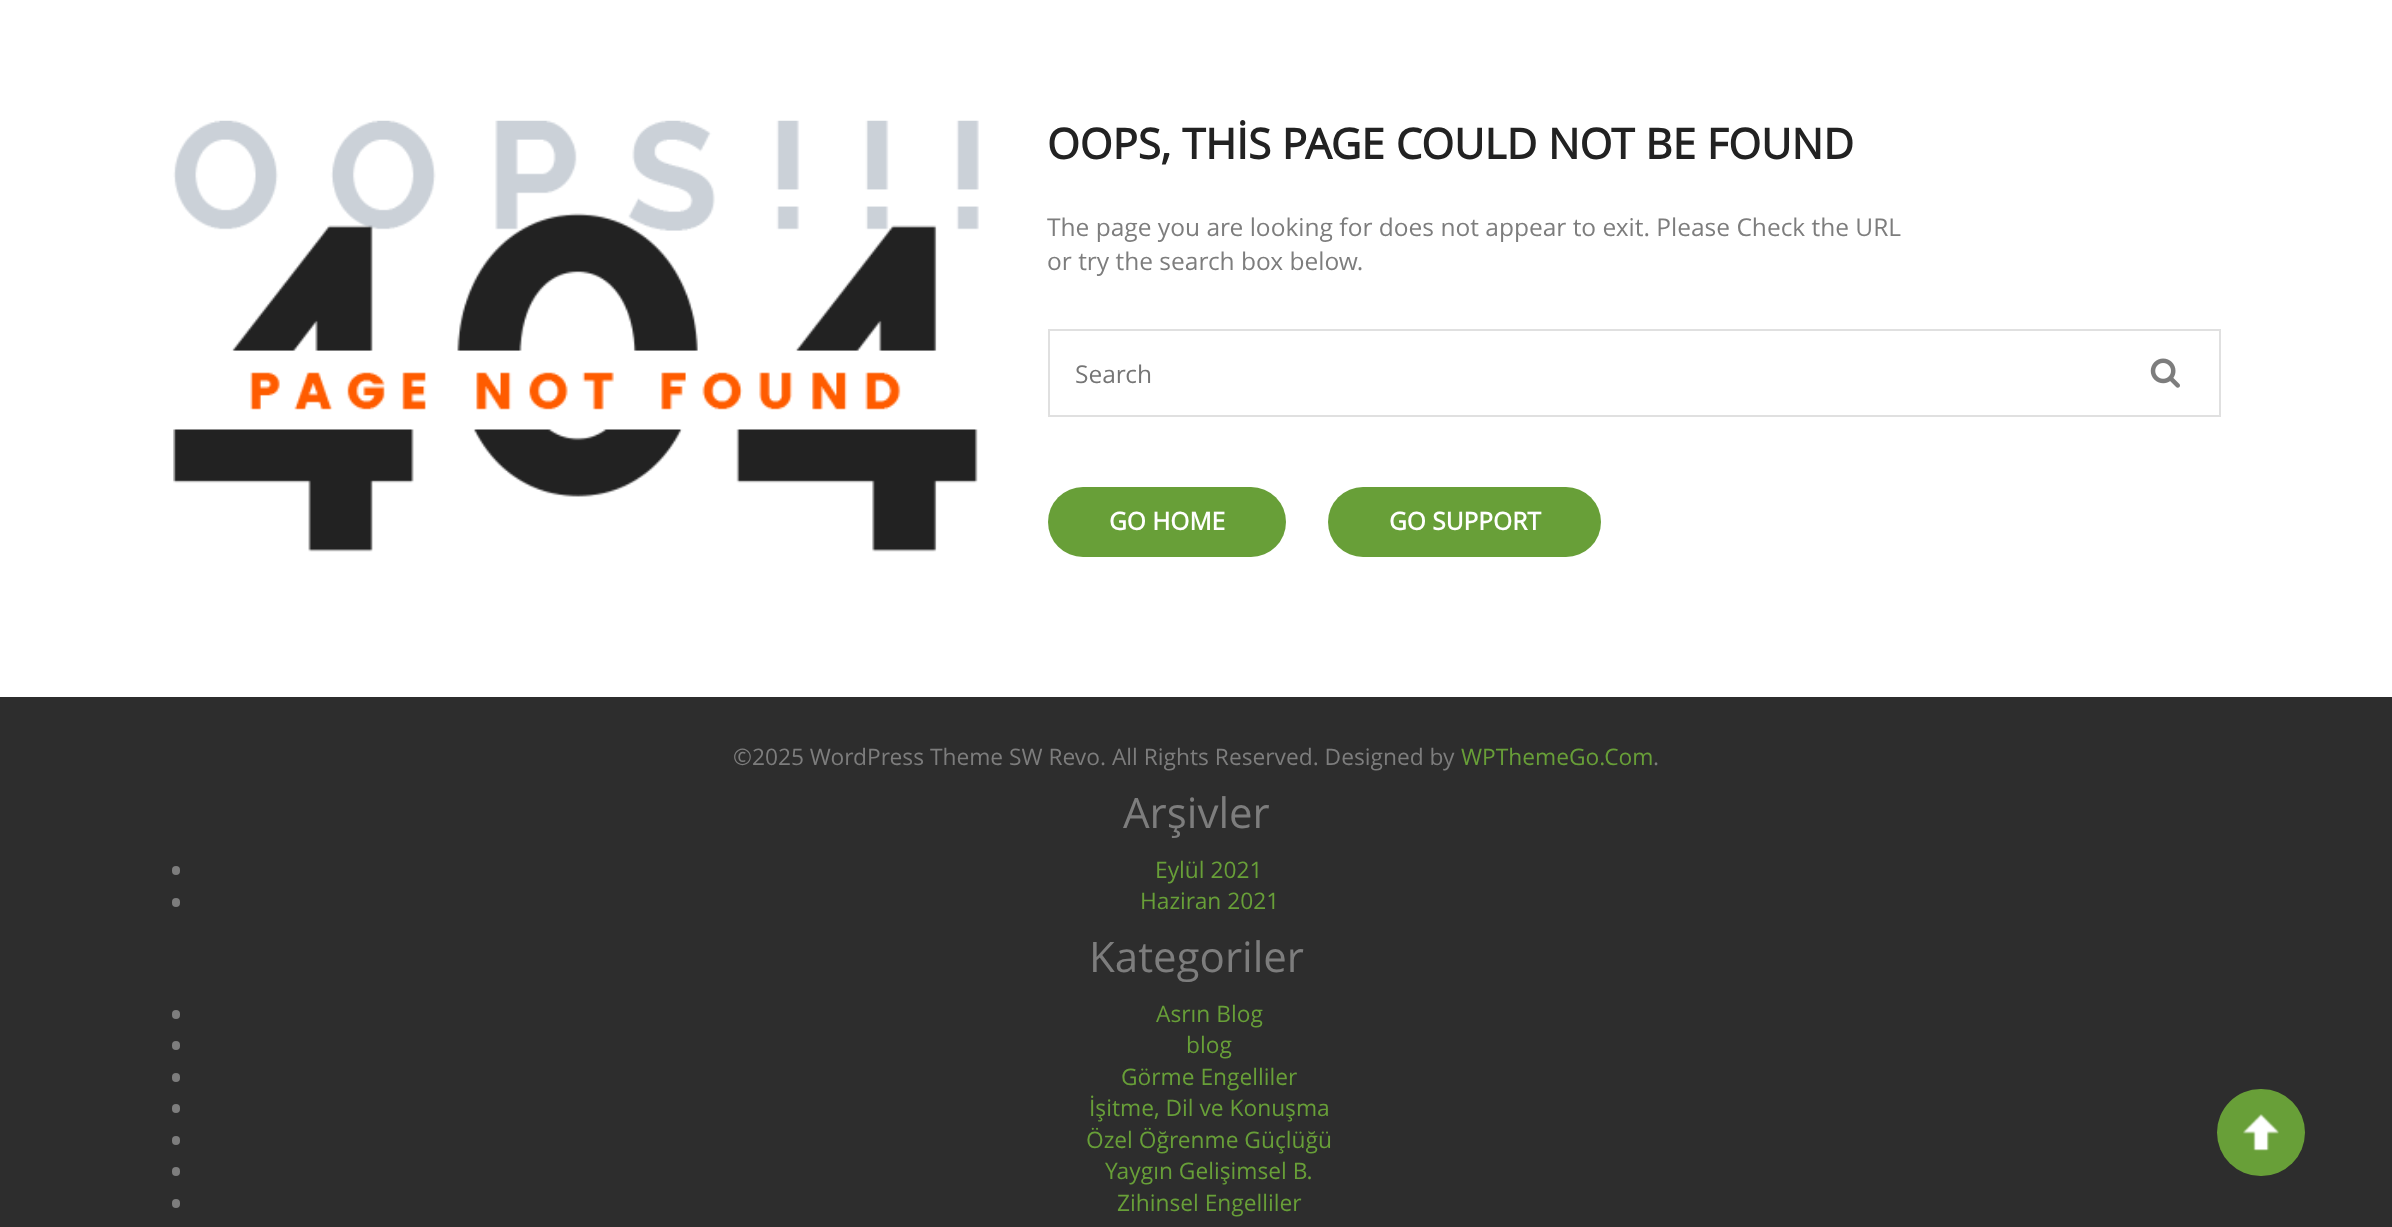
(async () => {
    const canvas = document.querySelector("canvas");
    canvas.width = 2392;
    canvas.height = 1227;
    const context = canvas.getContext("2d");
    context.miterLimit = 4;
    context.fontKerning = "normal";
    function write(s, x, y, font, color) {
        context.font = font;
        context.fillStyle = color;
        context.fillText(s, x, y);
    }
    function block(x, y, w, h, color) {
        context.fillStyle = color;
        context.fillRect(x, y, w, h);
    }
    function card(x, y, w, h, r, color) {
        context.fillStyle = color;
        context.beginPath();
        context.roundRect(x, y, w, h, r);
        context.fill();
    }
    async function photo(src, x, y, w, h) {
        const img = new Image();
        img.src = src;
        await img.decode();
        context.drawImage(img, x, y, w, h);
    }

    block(0, 0, 2392, 1227, "rgb(255, 255, 255)");
    await photo("media/1.png", 173, 120, 806, 432);
    write("OOPS, THİS PAGE COULD NOT BE FOUND", 1047, 159, "bold 42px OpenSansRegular", "rgb(34, 34, 34)");
    write("The page you are looking for does not appear to exit. Please Check the URL", 1047, 236, "24.5px OpenSansRegular", "rgb(125, 125, 125)");
    write("or try the search box below.", 1047, 270, "24.5px OpenSansRegular", "rgb(125, 125, 125)");
    context.strokeStyle = "rgb(224, 224, 224)";
    context.lineWidth = 2;
    context.strokeRect(1049, 330, 1171, 86);
    write("Search", 1075, 383, "24.5px OpenSansRegular", "rgb(117, 117, 117)");
    await photo("media/2.png", 2150, 358, 30, 30);
    card(1048, 487, 238, 70, 35, "rgb(104, 159, 56)");
    write("GO HOME", 1109, 530, "bold 24.5px OpenSansRegular", "rgb(255, 255, 255)");
    card(1328, 487, 273, 70, 35, "rgb(104, 159, 56)");
    write("GO SUPPORT", 1389, 530, "bold 24.5px OpenSansRegular", "rgb(255, 255, 255)");
    block(0, 697, 2392, 530, "rgb(45, 45, 45)");
    write("©2025 WordPress Theme SW Revo. All Rights Reserved. Designed by", 733, 765, "22.75px OpenSansRegular", "rgb(125, 125, 125)");
    write("WPThemeGo.Com", 1461, 765, "22.75px OpenSansRegular", "rgb(104, 159, 56)");
    write(".", 1653, 765, "22.75px OpenSansRegular", "rgb(125, 125, 125)");
    write("Arşivler", 1123, 828, "42px OpenSansRegular", "rgb(125, 125, 125)");
    card(172, 866, 8, 9, 4, "rgb(125, 125, 125)");
    write("Eylül 2021", 1155, 878, "22.75px OpenSansRegular", "rgb(104, 159, 56)");
    card(172, 898, 8, 9, 4, "rgb(125, 125, 125)");
    write("Haziran 2021", 1140, 909, "22.75px OpenSansRegular", "rgb(104, 159, 56)");
    write("Kategoriler", 1089, 972, "42px OpenSansRegular", "rgb(125, 125, 125)");
    card(172, 1010, 8, 9, 4, "rgb(125, 125, 125)");
    write("Asrın Blog", 1156, 1022, "22.75px OpenSansRegular", "rgb(104, 159, 56)");
    card(172, 1041, 8, 9, 4, "rgb(125, 125, 125)");
    write("blog", 1186, 1053, "22.75px OpenSansRegular", "rgb(104, 159, 56)");
    card(172, 1073, 8, 9, 4, "rgb(125, 125, 125)");
    write("Görme Engelliler", 1121, 1085, "22.75px OpenSansRegular", "rgb(104, 159, 56)");
    card(172, 1104, 8, 9, 4, "rgb(125, 125, 125)");
    write("İşitme, Dil ve Konuşma", 1089, 1116, "22.75px OpenSansRegular", "rgb(104, 159, 56)");
    card(172, 1136, 8, 9, 4, "rgb(125, 125, 125)");
    write("Özel Öğrenme Güçlüğü", 1086, 1148, "22.75px OpenSansRegular", "rgb(104, 159, 56)");
    card(172, 1167, 8, 9, 4, "rgb(125, 125, 125)");
    write("Yaygın Gelişimsel B.", 1105, 1179, "22.75px OpenSansRegular", "rgb(104, 159, 56)");
    card(172, 1199, 8, 9, 4, "rgb(125, 125, 125)");
    write("Zihinsel Engelliler", 1117, 1211, "22.75px OpenSansRegular", "rgb(104, 159, 56)");
    card(2217, 1089, 88, 87, 43.5, "rgb(104, 159, 56)");
    await photo("media/3.png", 2243, 1114, 36, 37);
})();
